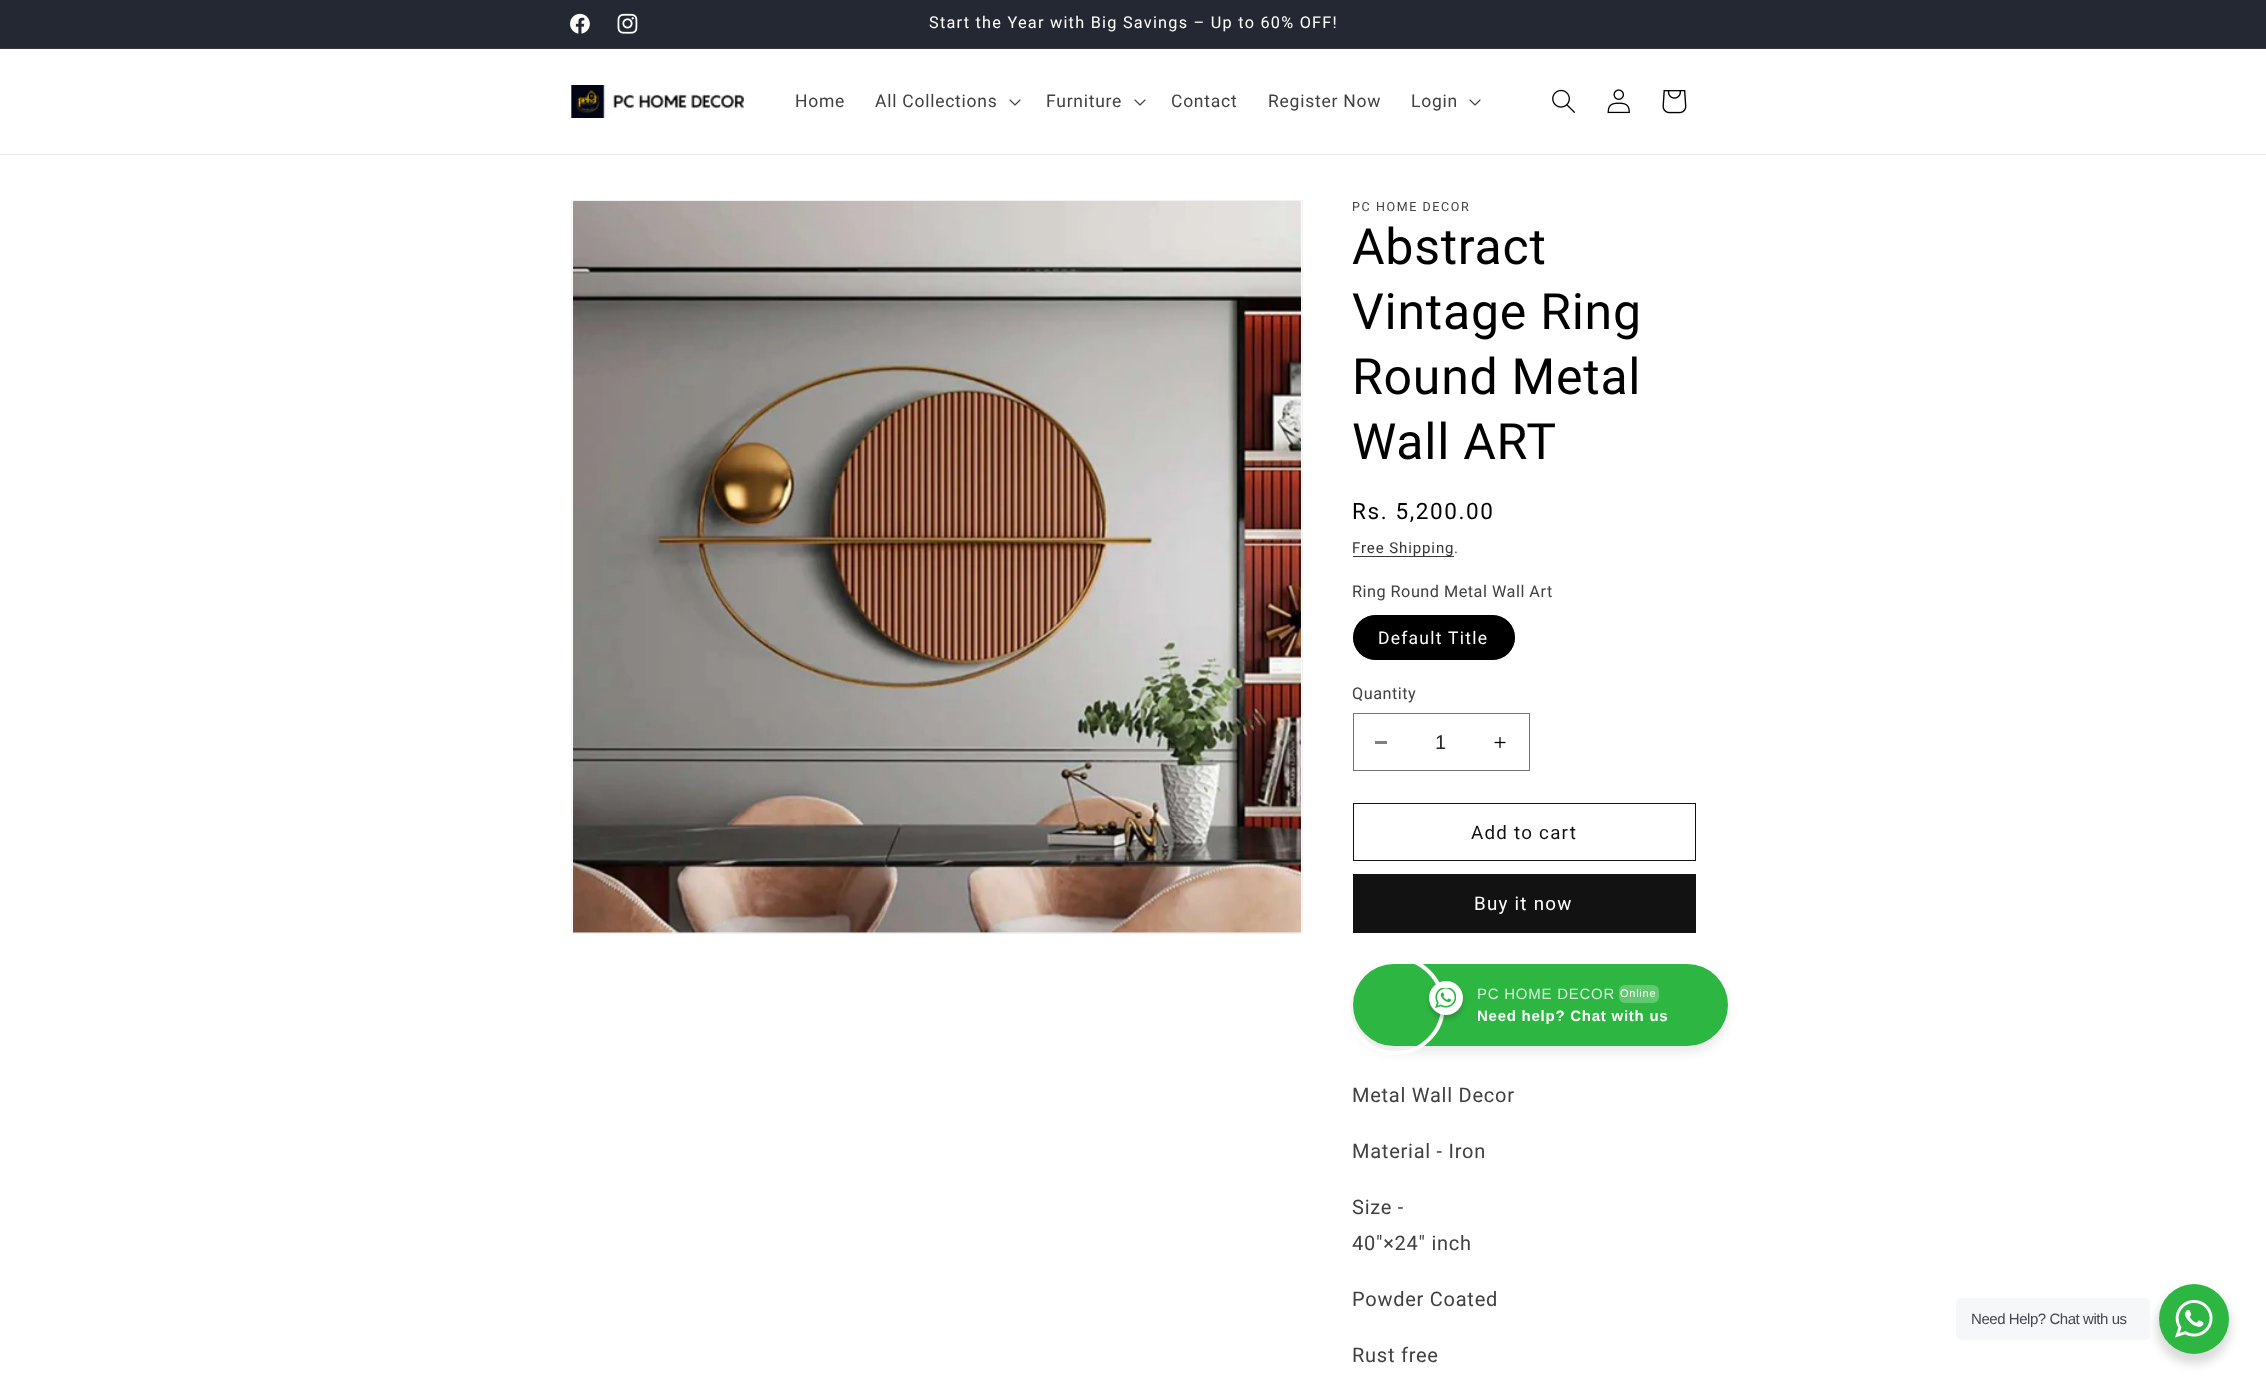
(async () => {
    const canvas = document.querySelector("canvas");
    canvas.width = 2266;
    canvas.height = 1391;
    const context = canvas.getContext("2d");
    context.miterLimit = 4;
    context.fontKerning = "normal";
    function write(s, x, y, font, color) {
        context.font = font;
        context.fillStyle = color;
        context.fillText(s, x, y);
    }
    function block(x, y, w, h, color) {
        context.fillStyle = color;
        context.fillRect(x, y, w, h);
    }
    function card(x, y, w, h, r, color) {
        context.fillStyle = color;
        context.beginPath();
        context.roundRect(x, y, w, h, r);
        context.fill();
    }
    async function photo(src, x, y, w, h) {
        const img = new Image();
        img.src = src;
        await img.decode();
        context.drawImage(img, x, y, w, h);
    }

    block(0, 0, 2266, 1391, "rgb(255, 255, 255)");
    block(0, 0, 2266, 48, "rgb(36, 40, 51)");
    block(0, 48, 2266, 1, "rgb(54, 57, 67)");
    await photo("media/1.png", 570, 13, 20, 21);
    await photo("media/2.png", 617, 13, 21, 21);
    context.letterSpacing = "1.25px";
    write("Start the Year with Big Savings – Up to 60% OFF!", 929, 28, "16.25px Roboto", "rgb(255, 255, 255)");
    block(0, 154, 2266, 1, "rgb(235, 235, 235)");
    await photo("media/3.png", 571, 85, 174, 33);
    context.letterSpacing = "0.75px";
    write("Home", 795, 107, "17.5px Roboto", "rgb(64, 64, 64)");
    write("All Collections", 875, 107, "17.5px Roboto", "rgb(64, 64, 64)");
    await photo("media/4.png", 1009, 99, 12, 7);
    write("Furniture", 1046, 107, "17.5px Roboto", "rgb(64, 64, 64)");
    await photo("media/4.png", 1134, 99, 12, 7);
    write("Contact", 1171, 107, "17.5px Roboto", "rgb(64, 64, 64)");
    write("Register Now", 1268, 107, "17.5px Roboto", "rgb(64, 64, 64)");
    write("Login", 1411, 107, "17.5px Roboto", "rgb(64, 64, 64)");
    await photo("media/4.png", 1469, 99, 12, 7);
    await photo("media/5.png", 1552, 89, 23, 24);
    await photo("media/6.png", 1607, 89, 23, 25);
    await photo("media/7.png", 1662, 90, 25, 24);
    context.strokeStyle = "rgb(242, 242, 242)";
    context.strokeRect(571.5, 200.5, 731, 733);
    await photo("media/8.png", 573, 201, 728, 732);
    context.letterSpacing = "1.6px";
    write("PC HOME DECOR", 1352, 211, "12.5px Roboto", "rgb(64, 64, 64)");
    context.letterSpacing = "0.75px";
    write("Abstract", 1352, 264, "50px Roboto", "rgb(0, 0, 0)");
    write("Vintage Ring", 1352, 329, "50px Roboto", "rgb(0, 0, 0)");
    write("Round Metal", 1352, 394, "50px Roboto", "rgb(0, 0, 0)");
    write("Wall ART", 1352, 459, "50px Roboto", "rgb(0, 0, 0)");
    context.letterSpacing = "1.6px";
    write("Rs. 5,200.00", 1352, 519, "22.5px Roboto", "rgb(0, 0, 0)");
    block(1353, 556, 101, 1, "rgb(54, 54, 54)");
    context.letterSpacing = "0.9px";
    write("Free Shipping", 1352, 553, "15px Roboto", "rgb(53, 53, 53)");
    write(".", 1454, 553, "15px Roboto", "rgb(64, 64, 64)");
    context.letterSpacing = "0.5px";
    write("Ring Round Metal Wall Art", 1352, 597, "16.25px Roboto", "rgb(64, 64, 64)");
    card(1353, 615, 162, 45, 22.5, "rgb(0, 0, 0)");
    context.beginPath();
    context.roundRect(1353.5, 615.5, 161, 44, 22);
    context.strokeStyle = "rgba(0, 0, 0, 0.55)";
    context.stroke();
    context.letterSpacing = "1.25px";
    write("Default Title", 1378, 644, "17.5px Roboto", "rgb(255, 255, 255)");
    context.letterSpacing = "0.5px";
    write("Quantity", 1352, 699, "16.25px Roboto", "rgb(64, 64, 64)");
    block(1375, 741, 12, 3, "rgb(128, 128, 128)");
    await photo("media/9.png", 1494, 736, 12, 13);
    context.strokeStyle = "rgb(115, 115, 115)";
    context.strokeRect(1353.5, 713.5, 176, 57);
    context.letterSpacing = "0px";
    write("1", 1435, 749, "20px Liberation Sans", "rgb(38, 38, 38)");
    context.strokeStyle = "rgb(18, 18, 18)";
    context.strokeRect(1353.5, 803.5, 342, 57);
    context.letterSpacing = "1.25px";
    write("Add to cart", 1471, 839, "18.75px Roboto", "rgb(18, 18, 18)");
    block(1353, 874, 343, 59, "rgb(18, 18, 18)");
    write("Buy it now", 1474, 910, "18.75px Roboto", "rgb(255, 255, 255)");
    context.fillStyle = "rgba(32, 32, 37, 0.09)";
    context.filter = "blur(5px)";
    context.beginPath();
    context.roundRect(1351, 968, 378, 85, 42.5);
    context.fill();
    context.filter = "none";
    card(1353, 964, 375, 82, 41, "rgb(45, 183, 66)");
    context.beginPath();
    context.arc(1395.5, 1005.5, 47.5, 0, Math.PI * 2);
    context.strokeStyle = "rgb(255, 255, 255)";
    context.lineWidth = 4;
    context.stroke();
    context.fillStyle = "rgba(39, 38, 38, 0.26)";
    context.filter = "blur(2.5px)";
    context.beginPath();
    context.roundRect(1429, 985, 34, 34, 17);
    context.fill();
    context.filter = "none";
    context.fillStyle = "rgb(255, 255, 255)";
    context.beginPath();
    context.arc(1446, 998, 17, 0, Math.PI * 2);
    context.fill();
    await photo("media/10.png", 1435, 988, 21, 21);
    context.letterSpacing = "0.75px";
    write("PC HOME DECOR", 1477, 999, "15px Liberation Sans", "rgb(213, 240, 217)");
    card(1619, 985, 40, 18, 6, "rgb(98, 201, 113)");
    write("Online", 1620, 997, "11px Liberation Sans", "rgb(255, 255, 255)");
    write("Need help? Chat with us", 1477, 1021, "bold 15px Liberation Sans", "rgb(255, 255, 255)");
    write("Metal Wall Decor", 1352, 1102, "20px Roboto", "rgb(64, 64, 64)");
    write("Material - Iron", 1352, 1158, "20px Roboto", "rgb(64, 64, 64)");
    write("Size -", 1352, 1214, "20px Roboto", "rgb(64, 64, 64)");
    write("40\"×24\" inch", 1352, 1250, "20px Roboto", "rgb(64, 64, 64)");
    write("Powder Coated", 1352, 1306, "20px Roboto", "rgb(64, 64, 64)");
    write("Rust free", 1352, 1362, "20px Roboto", "rgb(64, 64, 64)");
    context.fillStyle = "rgba(0, 0, 0, 0.14)";
    context.filter = "blur(5px)";
    context.beginPath();
    context.roundRect(2156, 1289, 75, 75, 37.5);
    context.fill();
    context.filter = "none";
    card(1956, 1298, 194, 42, 5, "rgb(245, 247, 249)");
    context.letterSpacing = "-0.45px";
    write("Need Help? Chat with us", 1971, 1324, "15px Liberation Sans", "rgb(67, 71, 78)");
    context.fillStyle = "rgb(45, 183, 66)";
    context.beginPath();
    context.arc(2194, 1319, 35, 0, Math.PI * 2);
    context.fill();
    await photo("media/11.png", 2175, 1300, 38, 38);
})();
